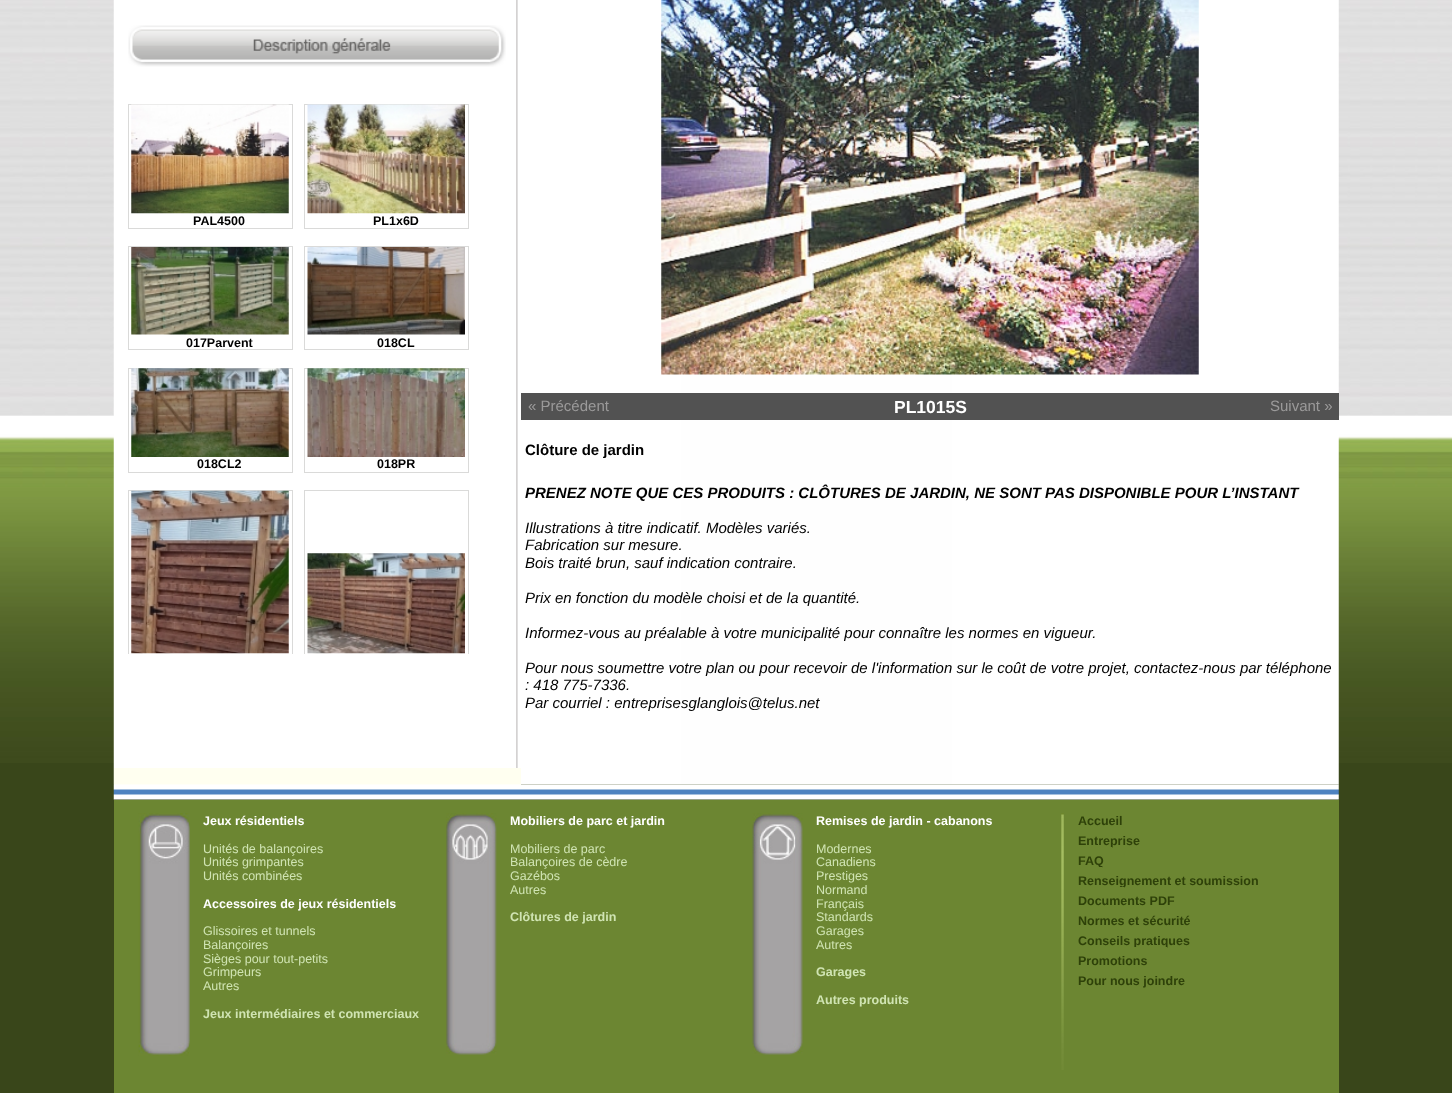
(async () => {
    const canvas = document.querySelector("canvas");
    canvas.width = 1452;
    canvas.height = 1093;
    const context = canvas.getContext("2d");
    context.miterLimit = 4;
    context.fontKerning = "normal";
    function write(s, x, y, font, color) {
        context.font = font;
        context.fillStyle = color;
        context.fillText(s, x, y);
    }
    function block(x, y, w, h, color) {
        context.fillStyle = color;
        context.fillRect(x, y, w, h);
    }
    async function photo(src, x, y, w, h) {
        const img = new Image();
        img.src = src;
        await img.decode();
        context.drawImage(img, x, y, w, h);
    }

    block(0, 0, 1452, 1093, "rgb(57, 70, 26)");
    await photo("media/1.png", 0, 0, 1452, 763);
    await photo("media/2.png", 113, 0, 1226, 785);
    await photo("media/3.png", 128, 25, 378, 42);
    context.strokeStyle = "rgb(218, 218, 217)";
    context.strokeRect(128.5, 104.5, 164, 124);
    await photo("media/4.png", 131, 104, 158, 110);
    write("PAL4500", 193, 225, "bold 12.5px Liberation Sans", "rgb(0, 0, 0)");
    context.strokeRect(304.5, 104.5, 164, 124);
    await photo("media/5.png", 307, 104, 158, 110);
    write("PL1x6D", 373, 225, "bold 12.5px Liberation Sans", "rgb(0, 0, 0)");
    context.strokeRect(128.5, 246.5, 164, 103);
    await photo("media/6.png", 131, 247, 158, 88);
    write("017Parvent", 186, 347, "bold 12.5px Liberation Sans", "rgb(0, 0, 0)");
    context.strokeRect(304.5, 246.5, 164, 103);
    await photo("media/7.png", 307, 247, 158, 88);
    write("018CL", 377, 347, "bold 12.5px Liberation Sans", "rgb(0, 0, 0)");
    context.strokeRect(128.5, 368.5, 164, 104);
    await photo("media/8.png", 131, 368, 158, 89);
    write("018CL2", 197, 468, "bold 12.5px Liberation Sans", "rgb(0, 0, 0)");
    context.strokeRect(304.5, 368.5, 164, 104);
    await photo("media/9.png", 307, 368, 158, 89);
    write("018PR", 377, 468, "bold 12.5px Liberation Sans", "rgb(0, 0, 0)");
    context.save();
    context.beginPath();
    context.rect(114, 104, 387, 550);
    context.clip();
    context.strokeRect(128.5, 490.5, 164, 244);
    context.restore();
    await photo("media/10.png", 131, 490, 158, 164);
    context.save();
    context.beginPath();
    context.rect(114, 104, 387, 550);
    context.clip();
    context.strokeRect(304.5, 490.5, 164, 244);
    context.restore();
    await photo("media/11.png", 307, 553, 158, 101);
    await photo("media/12.png", 661, 0, 538, 375);
    block(521, 393, 818, 27, "rgb(82, 82, 82)");
    write("« Précédent", 528, 411, "15px Liberation Sans", "rgb(155, 154, 154)");
    write("PL1015S", 894, 413, "bold 17.5px Liberation Sans", "rgb(255, 255, 255)");
    write("Suivant »", 1270, 411, "15px Liberation Sans", "rgb(155, 154, 154)");
    write("Clôture de jardin", 525, 455, "bold 15px Liberation Sans", "rgb(0, 0, 0)");
    write("PRENEZ NOTE QUE CES PRODUITS : CLÔTURES DE JARDIN, NE SONT PAS DISPONIBLE POUR L’INSTANT", 525, 498, "italic bold 15px Liberation Sans", "rgb(0, 0, 0)");
    write("Illustrations à titre indicatif. Modèles variés.", 525, 533, "italic 15px Liberation Sans", "rgb(0, 0, 0)");
    write("Fabrication sur mesure.", 525, 550, "italic 15px Liberation Sans", "rgb(0, 0, 0)");
    write("Bois traité brun, sauf indication contraire.", 525, 568, "italic 15px Liberation Sans", "rgb(0, 0, 0)");
    write("Prix en fonction du modèle choisi et de la quantité.", 525, 603, "italic 15px Liberation Sans", "rgb(0, 0, 0)");
    write("Informez-vous au préalable à votre municipalité pour connaître les normes en vigueur.", 525, 638, "italic 15px Liberation Sans", "rgb(0, 0, 0)");
    write("Pour nous soumettre votre plan ou pour recevoir de l'information sur le coût de votre projet, contactez-nous par téléphone", 525, 673, "italic 15px Liberation Sans", "rgb(0, 0, 0)");
    write(": 418 775-7336.", 525, 690, "italic 15px Liberation Sans", "rgb(0, 0, 0)");
    write("Par courriel : entreprisesglanglois@telus.net", 525, 708, "italic 15px Liberation Sans", "rgb(0, 0, 0)");
    block(114, 768, 407, 17, "rgb(255, 255, 240)");
    await photo("media/13.png", 113, 784, 1226, 16);
    block(114, 800, 1225, 293, "rgb(108, 134, 50)");
    await photo("media/14.png", 138, 813, 52, 243);
    write("Jeux résidentiels", 203, 825, "bold 12.5px Liberation Sans", "rgb(255, 255, 255)");
    write("Unités de balançoires", 203, 853, "12.5px Liberation Sans", "rgb(208, 228, 179)");
    write("Unités grimpantes", 203, 866, "12.5px Liberation Sans", "rgb(208, 228, 179)");
    write("Unités combinées", 203, 880, "12.5px Liberation Sans", "rgb(208, 228, 179)");
    write("Accessoires de jeux résidentiels", 203, 908, "bold 12.5px Liberation Sans", "rgb(255, 255, 255)");
    write("Glissoires et tunnels", 203, 935, "12.5px Liberation Sans", "rgb(208, 228, 179)");
    write("Balançoires", 203, 949, "12.5px Liberation Sans", "rgb(208, 228, 179)");
    write("Sièges pour tout-petits", 203, 963, "12.5px Liberation Sans", "rgb(208, 228, 179)");
    write("Grimpeurs", 203, 976, "12.5px Liberation Sans", "rgb(208, 228, 179)");
    write("Autres", 203, 990, "12.5px Liberation Sans", "rgb(208, 228, 179)");
    write("Jeux intermédiaires et commerciaux", 203, 1018, "bold 12.5px Liberation Sans", "rgb(208, 228, 179)");
    await photo("media/15.png", 446, 813, 51, 242);
    write("Mobiliers de parc et jardin", 510, 825, "bold 12.5px Liberation Sans", "rgb(255, 255, 255)");
    write("Mobiliers de parc", 510, 853, "12.5px Liberation Sans", "rgb(208, 228, 179)");
    write("Balançoires de cèdre", 510, 866, "12.5px Liberation Sans", "rgb(208, 228, 179)");
    write("Gazébos", 510, 880, "12.5px Liberation Sans", "rgb(208, 228, 179)");
    write("Autres", 510, 894, "12.5px Liberation Sans", "rgb(208, 228, 179)");
    write("Clôtures de jardin", 510, 921, "bold 12.5px Liberation Sans", "rgb(208, 228, 179)");
    await photo("media/16.png", 752, 813, 51, 242);
    write("Remises de jardin - cabanons", 816, 825, "bold 12.5px Liberation Sans", "rgb(255, 255, 255)");
    write("Modernes", 816, 853, "12.5px Liberation Sans", "rgb(208, 228, 179)");
    write("Canadiens", 816, 866, "12.5px Liberation Sans", "rgb(208, 228, 179)");
    write("Prestiges", 816, 880, "12.5px Liberation Sans", "rgb(208, 228, 179)");
    write("Normand", 816, 894, "12.5px Liberation Sans", "rgb(208, 228, 179)");
    write("Français", 816, 908, "12.5px Liberation Sans", "rgb(208, 228, 179)");
    write("Standards", 816, 921, "12.5px Liberation Sans", "rgb(208, 228, 179)");
    write("Garages", 816, 935, "12.5px Liberation Sans", "rgb(208, 228, 179)");
    write("Autres", 816, 949, "12.5px Liberation Sans", "rgb(208, 228, 179)");
    write("Garages", 816, 976, "bold 12.5px Liberation Sans", "rgb(208, 228, 179)");
    write("Autres produits", 816, 1004, "bold 12.5px Liberation Sans", "rgb(208, 228, 179)");
    await photo("media/17.png", 1061, 813, 3, 257);
    write("Accueil", 1078, 825, "bold 12.5px Liberation Sans", "rgb(46, 65, 9)");
    write("Entreprise", 1078, 845, "bold 12.5px Liberation Sans", "rgb(46, 65, 9)");
    block(1110, 847, 2, 1, "rgb(108, 134, 50)");
    write("FAQ", 1078, 865, "bold 12.5px Liberation Sans", "rgb(46, 65, 9)");
    block(1099, 867, 3, 1, "rgb(108, 134, 50)");
    write("Renseignement et soumission", 1078, 885, "bold 12.5px Liberation Sans", "rgb(46, 65, 9)");
    block(1120, 887, 4, 1, "rgb(108, 134, 50)");
    write("Documents PDF", 1078, 905, "bold 12.5px Liberation Sans", "rgb(46, 65, 9)");
    write("Normes et sécurité", 1078, 925, "bold 12.5px Liberation Sans", "rgb(46, 65, 9)");
    write("Conseils pratiques", 1078, 945, "bold 12.5px Liberation Sans", "rgb(46, 65, 9)");
    block(1134, 947, 33, 1, "rgb(108, 134, 50)");
    write("Promotions", 1078, 965, "bold 12.5px Liberation Sans", "rgb(46, 65, 9)");
    write("Pour nous joindre", 1078, 985, "bold 12.5px Liberation Sans", "rgb(46, 65, 9)");
})();
